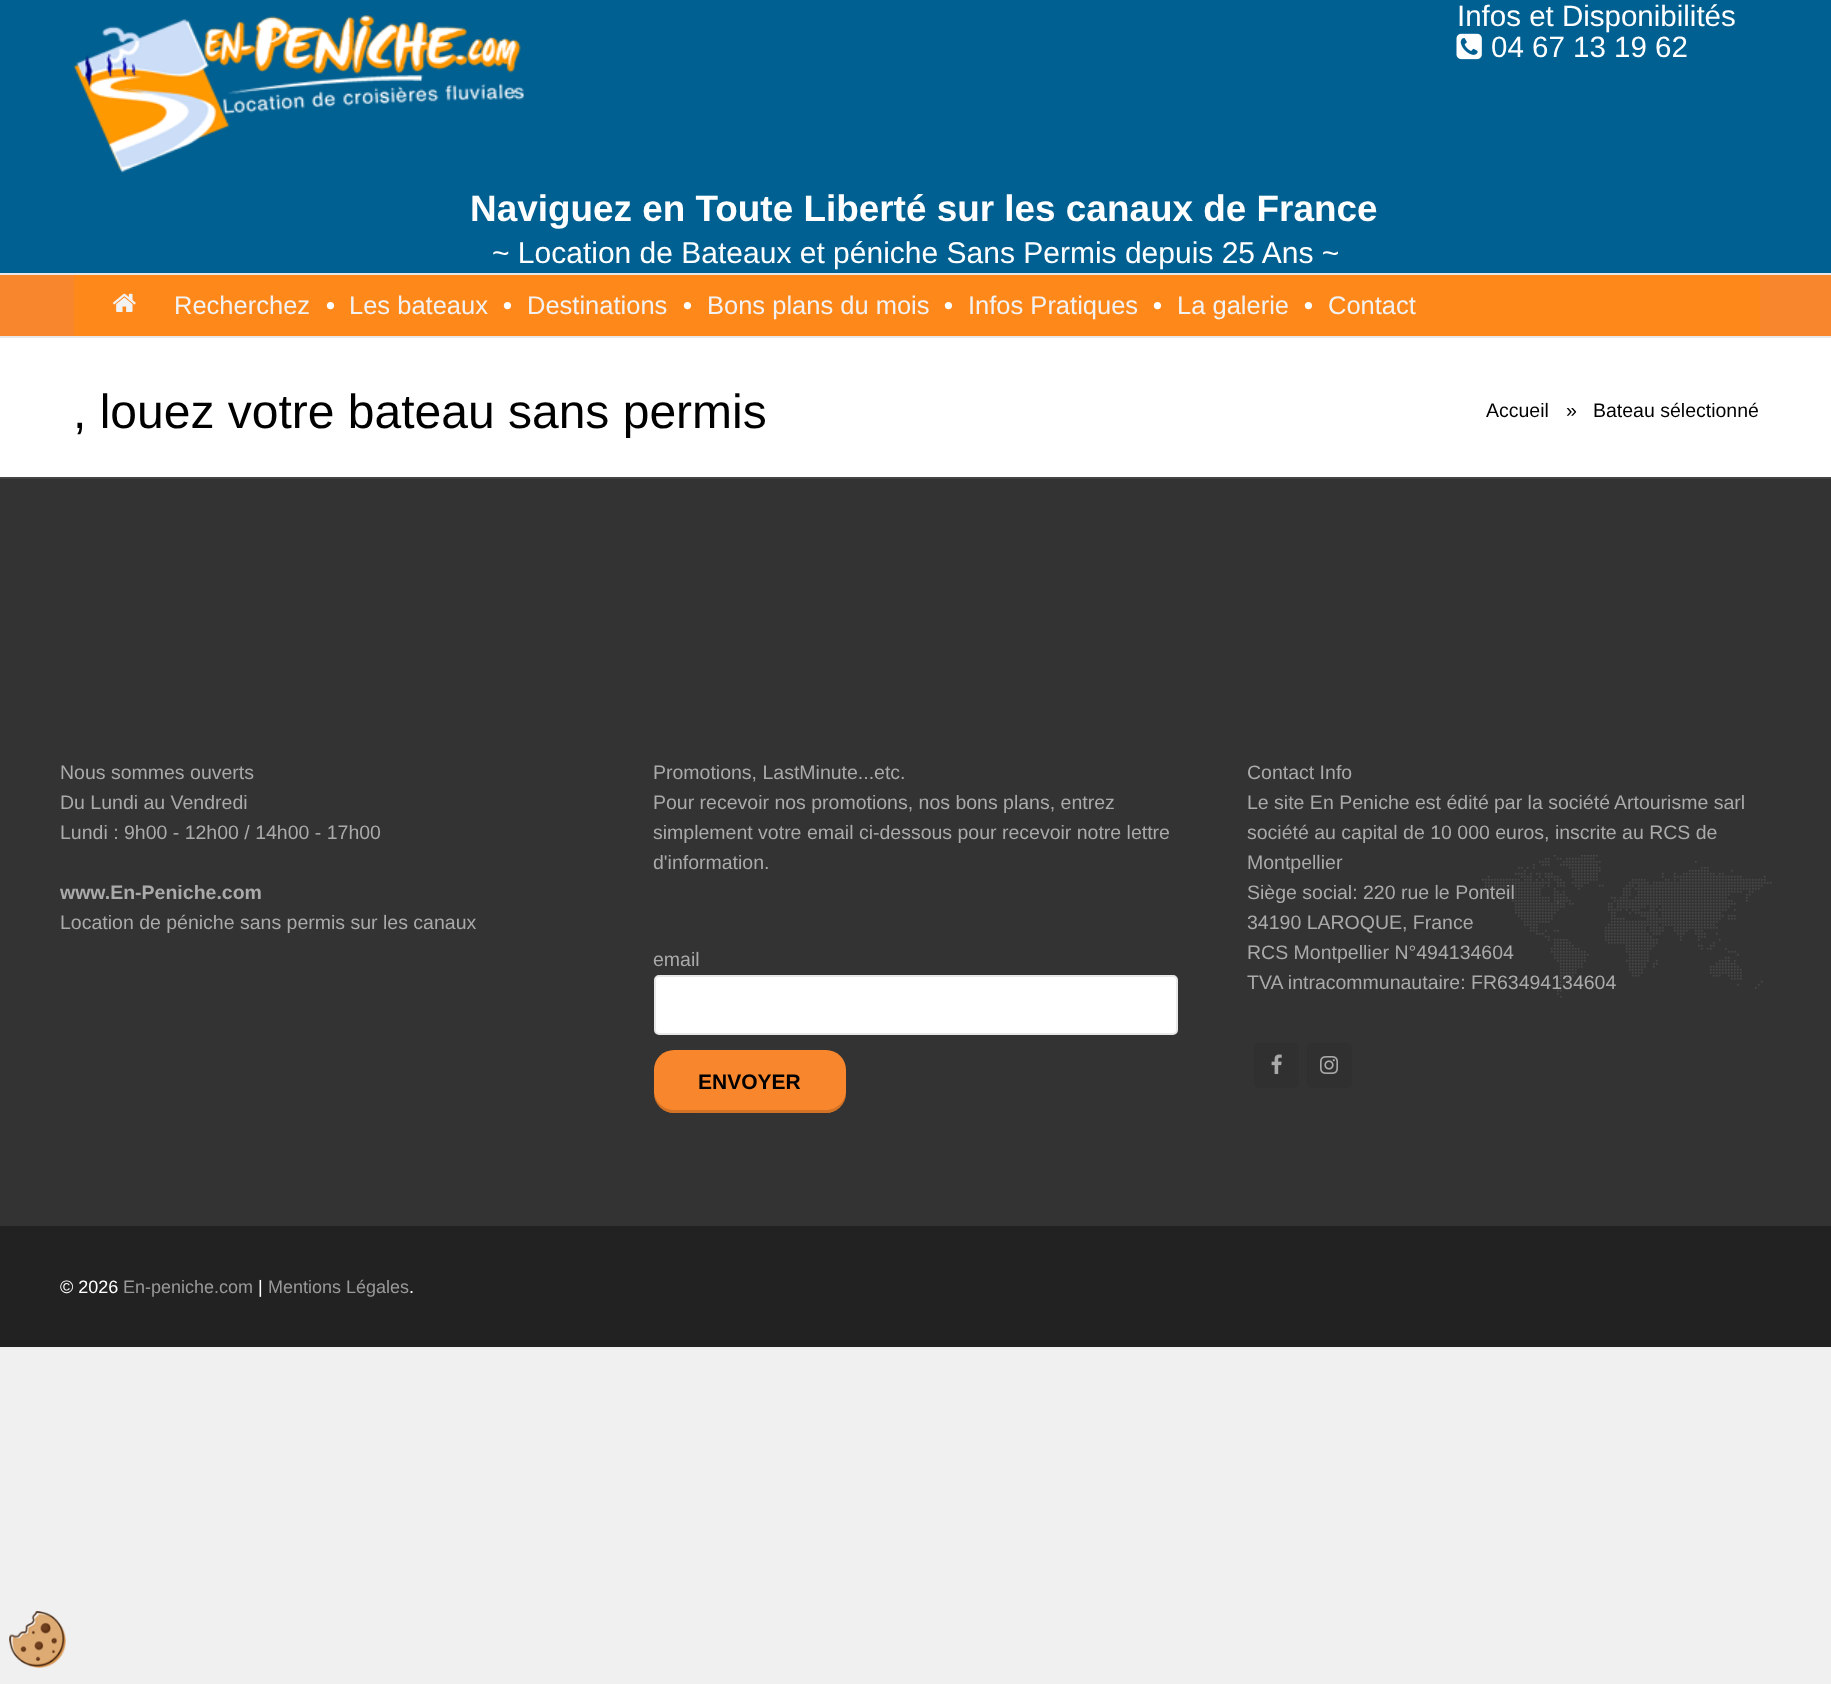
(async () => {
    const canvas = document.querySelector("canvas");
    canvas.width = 1831;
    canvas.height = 1684;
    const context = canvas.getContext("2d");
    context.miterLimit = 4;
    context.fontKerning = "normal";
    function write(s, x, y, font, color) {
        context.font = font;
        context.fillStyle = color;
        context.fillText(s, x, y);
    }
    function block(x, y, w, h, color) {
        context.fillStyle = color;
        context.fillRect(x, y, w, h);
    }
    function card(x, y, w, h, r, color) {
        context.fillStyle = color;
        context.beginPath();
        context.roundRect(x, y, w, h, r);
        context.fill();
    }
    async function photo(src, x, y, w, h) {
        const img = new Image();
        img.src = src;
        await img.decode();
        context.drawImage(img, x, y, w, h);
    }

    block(0, 0, 1831, 1684, "rgb(240, 240, 240)");
    block(0, 338, 1831, 139, "rgb(255, 255, 255)");
    block(0, 0, 1831, 273, "rgb(0, 96, 146)");
    block(0, 273, 1831, 2, "rgb(232, 232, 232)");
    await photo("media/1.png", 73, 15, 451, 158);
    write("Infos et Disponibilités", 1457, 26, "29.5px Liberation Sans", "rgb(255, 255, 255)");
    await photo("media/2.png", 1456, 33, 26, 27);
    write("04 67 13 19 62", 1491, 57, "29.5px Liberation Sans", "rgb(255, 255, 255)");
    write("Naviguez en Toute Liberté sur les canaux de France", 470, 221, "bold 36.9px Liberation Sans", "rgb(255, 255, 255)");
    write("~ Location de Bateaux et péniche Sans Permis depuis 25 Ans ~", 492, 263, "30px Liberation Sans", "rgb(255, 255, 255)");
    block(0, 275, 1831, 61, "rgb(248, 134, 44)");
    block(0, 336, 1831, 2, "rgb(232, 232, 232)");
    block(74, 275, 1686, 61, "rgb(255, 136, 26)");
    await photo("media/3.png", 112, 293, 24, 19);
    write("Recherchez", 174, 314, "25.5px Liberation Sans", "rgb(242, 242, 242)");
    write("•", 326, 314, "bold 25.5px Liberation Sans", "rgb(255, 255, 255)");
    write("Les bateaux", 349, 314, "25.5px Liberation Sans", "rgb(242, 242, 242)");
    write("•", 503, 314, "bold 25.5px Liberation Sans", "rgb(255, 255, 255)");
    write("Destinations", 527, 314, "25.5px Liberation Sans", "rgb(242, 242, 242)");
    write("•", 683, 314, "bold 25.5px Liberation Sans", "rgb(255, 255, 255)");
    write("Bons plans du mois", 707, 314, "25.5px Liberation Sans", "rgb(242, 242, 242)");
    write("•", 944, 314, "bold 25.5px Liberation Sans", "rgb(255, 255, 255)");
    write("Infos Pratiques", 968, 314, "25.5px Liberation Sans", "rgb(242, 242, 242)");
    write("•", 1153, 314, "bold 25.5px Liberation Sans", "rgb(255, 255, 255)");
    write("La galerie", 1177, 314, "25.5px Liberation Sans", "rgb(242, 242, 242)");
    write("•", 1304, 314, "bold 25.5px Liberation Sans", "rgb(255, 255, 255)");
    write("Contact", 1328, 314, "25.5px Liberation Sans", "rgb(242, 242, 242)");
    write(", louez votre bateau sans permis", 73, 428, "48px Liberation Sans", "rgb(0, 0, 0)");
    write("Accueil", 1486, 417, "19.5px Liberation Sans", "rgb(0, 0, 0)");
    write("»", 1566, 417, "19.5px Liberation Sans", "rgb(0, 0, 0)");
    write("Bateau sélectionné", 1593, 417, "19.5px Liberation Sans", "rgb(0, 0, 0)");
    block(0, 479, 1831, 747, "rgb(51, 51, 51)");
    block(0, 477, 1831, 2, "rgb(68, 68, 68)");
    write("Nous sommes ouverts", 60, 779, "19.5px Liberation Sans", "rgb(170, 170, 170)");
    write("Du Lundi au Vendredi", 60, 809, "19.5px Liberation Sans", "rgb(170, 170, 170)");
    write("Lundi : 9h00 - 12h00 / 14h00 - 17h00", 60, 839, "19.5px Liberation Sans", "rgb(170, 170, 170)");
    write("www.En-Peniche.com", 60, 899, "bold 19.5px Liberation Sans", "rgb(170, 170, 170)");
    write("Location de péniche sans permis sur les canaux", 60, 929, "19.5px Liberation Sans", "rgb(170, 170, 170)");
    write("Promotions, LastMinute...etc.", 653, 779, "19.5px Liberation Sans", "rgb(170, 170, 170)");
    write("Pour recevoir nos promotions, nos bons plans, entrez", 653, 809, "19.5px Liberation Sans", "rgb(170, 170, 170)");
    write("simplement votre email ci-dessous pour recevoir notre lettre", 653, 839, "19.5px Liberation Sans", "rgb(170, 170, 170)");
    write("d'information.", 653, 869, "19.5px Liberation Sans", "rgb(170, 170, 170)");
    write("email", 653, 966, "19.5px Liberation Sans", "rgb(170, 170, 170)");
    context.fillStyle = "rgb(255, 255, 255)";
    context.beginPath();
    context.roundRect(655, 976, 522, 58, 4);
    context.fill();
    context.strokeStyle = "rgb(232, 232, 232)";
    context.lineWidth = 2;
    context.stroke();
    card(654, 1050, 192, 63, 20, "rgb(248, 134, 44)");
    context.fillStyle = "rgba(0, 0, 0, 0.15)";
    context.beginPath();
    context.moveTo(654, 1090);
    context.bezierCurveTo(654, 1118, 678, 1113, 699, 1113);
    context.lineTo(801, 1113);
    context.bezierCurveTo(822, 1113, 846, 1118, 846, 1090);
    context.bezierCurveTo(846, 1101, 837, 1110, 826, 1110);
    context.lineTo(674, 1110);
    context.bezierCurveTo(663, 1110, 654, 1101, 654, 1090);
    context.closePath();
    context.fill();
    write("ENVOYER", 698, 1089, "bold 21px Liberation Sans", "rgb(0, 0, 0)");
    write("Contact Info", 1247, 779, "19.5px Liberation Sans", "rgb(170, 170, 170)");
    await photo("media/4.png", 1482, 855, 290, 143);
    write("Le site En Peniche est édité", 1247, 809, "19.5px Liberation Sans", "rgb(170, 170, 170)");
    write("par la société", 1494, 809, "19.5px Liberation Sans", "rgb(170, 170, 170)");
    write("Artourisme sarl", 1614, 809, "19.5px Liberation Sans", "rgb(170, 170, 170)");
    write("société au capital de 10 000 euros, inscrite au RCS de", 1247, 839, "19.5px Liberation Sans", "rgb(170, 170, 170)");
    write("Montpellier", 1247, 869, "19.5px Liberation Sans", "rgb(170, 170, 170)");
    write("Siège social: 220 rue le Ponteil", 1247, 899, "19.5px Liberation Sans", "rgb(170, 170, 170)");
    write("34190 LAROQUE, France", 1247, 929, "19.5px Liberation Sans", "rgb(170, 170, 170)");
    write("RCS Montpellier N°494134604", 1247, 959, "19.5px Liberation Sans", "rgb(170, 170, 170)");
    write("TVA intracommunautaire: FR63494134604", 1247, 989, "19.5px Liberation Sans", "rgb(170, 170, 170)");
    card(1254, 1043, 45, 45, 5, "rgb(48, 48, 48)");
    await photo("media/5.png", 1271, 1054, 11, 20);
    card(1307, 1043, 45, 45, 5, "rgb(48, 48, 48)");
    await photo("media/6.png", 1320, 1056, 18, 18);
    block(0, 1226, 1831, 121, "rgb(34, 34, 34)");
    write("© 2026", 60, 1293, "18px Liberation Sans", "rgb(255, 255, 255)");
    write("En-peniche.com", 123, 1293, "18px Liberation Sans", "rgb(153, 153, 153)");
    write("|", 258, 1293, "18px Liberation Sans", "rgb(255, 255, 255)");
    write("Mentions Légales", 268, 1293, "18px Liberation Sans", "rgb(153, 153, 153)");
    write(".", 409, 1293, "18px Liberation Sans", "rgb(255, 255, 255)");
    await photo("media/7.png", 9, 1611, 57, 57);
})();
